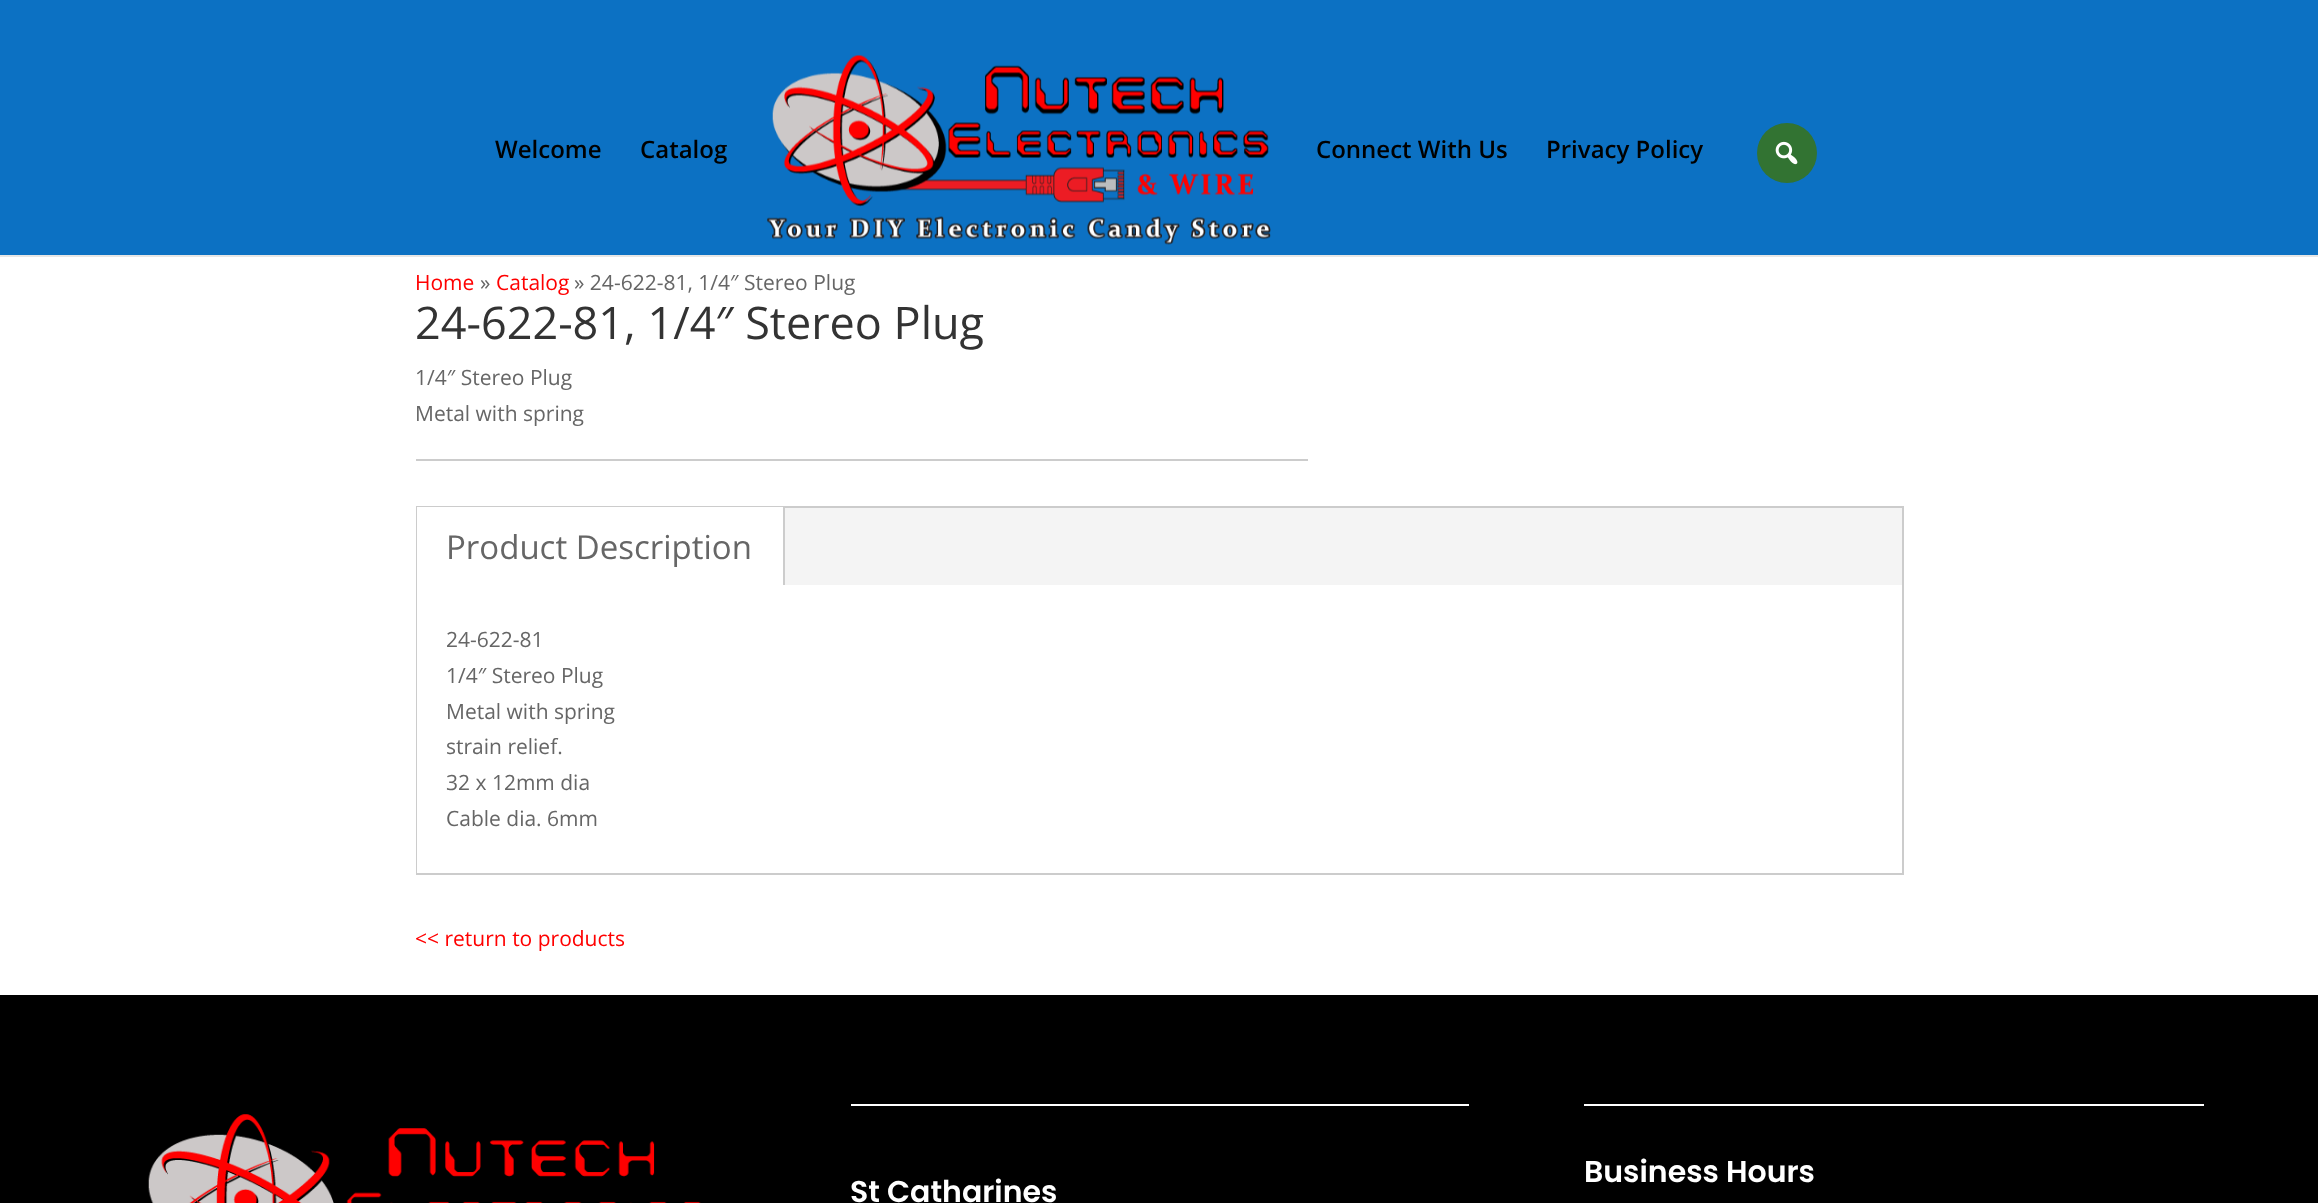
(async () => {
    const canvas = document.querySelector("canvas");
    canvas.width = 2318;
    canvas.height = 1203;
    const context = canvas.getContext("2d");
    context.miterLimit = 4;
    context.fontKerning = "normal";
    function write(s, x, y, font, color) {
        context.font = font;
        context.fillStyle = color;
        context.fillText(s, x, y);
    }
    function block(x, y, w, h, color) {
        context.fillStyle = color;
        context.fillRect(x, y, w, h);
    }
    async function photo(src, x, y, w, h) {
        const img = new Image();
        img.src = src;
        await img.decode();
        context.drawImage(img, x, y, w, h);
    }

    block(0, 0, 2318, 1203, "rgb(255, 255, 255)");
    block(0, 255, 2318, 2, "rgb(230, 230, 230)");
    block(0, 0, 2318, 255, "rgb(12, 113, 195)");
    write("Welcome", 495, 158, "600 24px Open Sans", "rgb(0, 0, 0)");
    write("Catalog", 640, 158, "600 24px Open Sans", "rgb(0, 0, 0)");
    await photo("media/1.png", 767, 55, 504, 190);
    write("Connect With Us", 1316, 158, "600 24px Open Sans", "rgb(0, 0, 0)");
    write("Privacy Policy", 1546, 158, "600 24px Open Sans", "rgb(0, 0, 0)");
    context.fillStyle = "rgb(50, 115, 50)";
    context.beginPath();
    context.arc(1787, 153, 30, 0, Math.PI * 2);
    context.fill();
    await photo("media/2.png", 1775, 141, 23, 24);
    write("Home", 415, 290, "21px Open Sans", "rgb(255, 0, 0)");
    write("»", 480, 290, "21px Open Sans", "rgb(102, 102, 102)");
    write("Catalog", 496, 290, "21px Open Sans", "rgb(255, 0, 0)");
    write("» 24-622-81, 1/4″ Stereo Plug", 574, 290, "21px Open Sans", "rgb(102, 102, 102)");
    write("24-622-81, 1/4″ Stereo Plug", 415, 339, "45px Open Sans", "rgb(51, 51, 51)");
    block(416, 459, 892, 2, "rgb(204, 204, 204)");
    write("1/4″ Stereo Plug", 415, 385, "21px Open Sans", "rgb(102, 102, 102)");
    write("Metal with spring", 415, 421, "21px Open Sans", "rgb(102, 102, 102)");
    block(785, 508, 1117, 77, "rgb(244, 244, 244)");
    context.strokeStyle = "rgb(204, 204, 204)";
    context.lineWidth = 2;
    context.strokeRect(417, 507, 1486, 367);
    block(417, 507, 366, 78, "rgb(255, 255, 255)");
    block(783, 507, 2, 78, "rgb(204, 204, 204)");
    write("Product Description", 446, 559, "33px Open Sans", "rgb(102, 102, 102)");
    block(417, 585, 1, 288, "rgb(255, 255, 255)");
    write("24-622-81", 446, 647, "21px Open Sans", "rgb(102, 102, 102)");
    write("1/4″ Stereo Plug", 446, 683, "21px Open Sans", "rgb(102, 102, 102)");
    write("Metal with spring", 446, 719, "21px Open Sans", "rgb(102, 102, 102)");
    write("strain relief.", 446, 754, "21px Open Sans", "rgb(102, 102, 102)");
    write("32 x 12mm dia", 446, 790, "21px Open Sans", "rgb(102, 102, 102)");
    write("Cable dia. 6mm", 446, 826, "21px Open Sans", "rgb(102, 102, 102)");
    write("<< return to products", 415, 946, "21px Open Sans", "rgb(255, 0, 0)");
    block(0, 995, 2318, 208, "rgb(0, 0, 0)");
    await photo("media/3.png", 148, 1114, 553, 89);
    block(1584, 1104, 620, 2, "rgb(255, 255, 255)");
    write("Business Hours", 1584, 1182, "600 30px Poppins", "rgb(255, 255, 255)");
    block(851, 1104, 618, 2, "rgb(255, 255, 255)");
    write("St Catharines", 850, 1202, "600 30px Poppins", "rgb(255, 255, 255)");
})();
